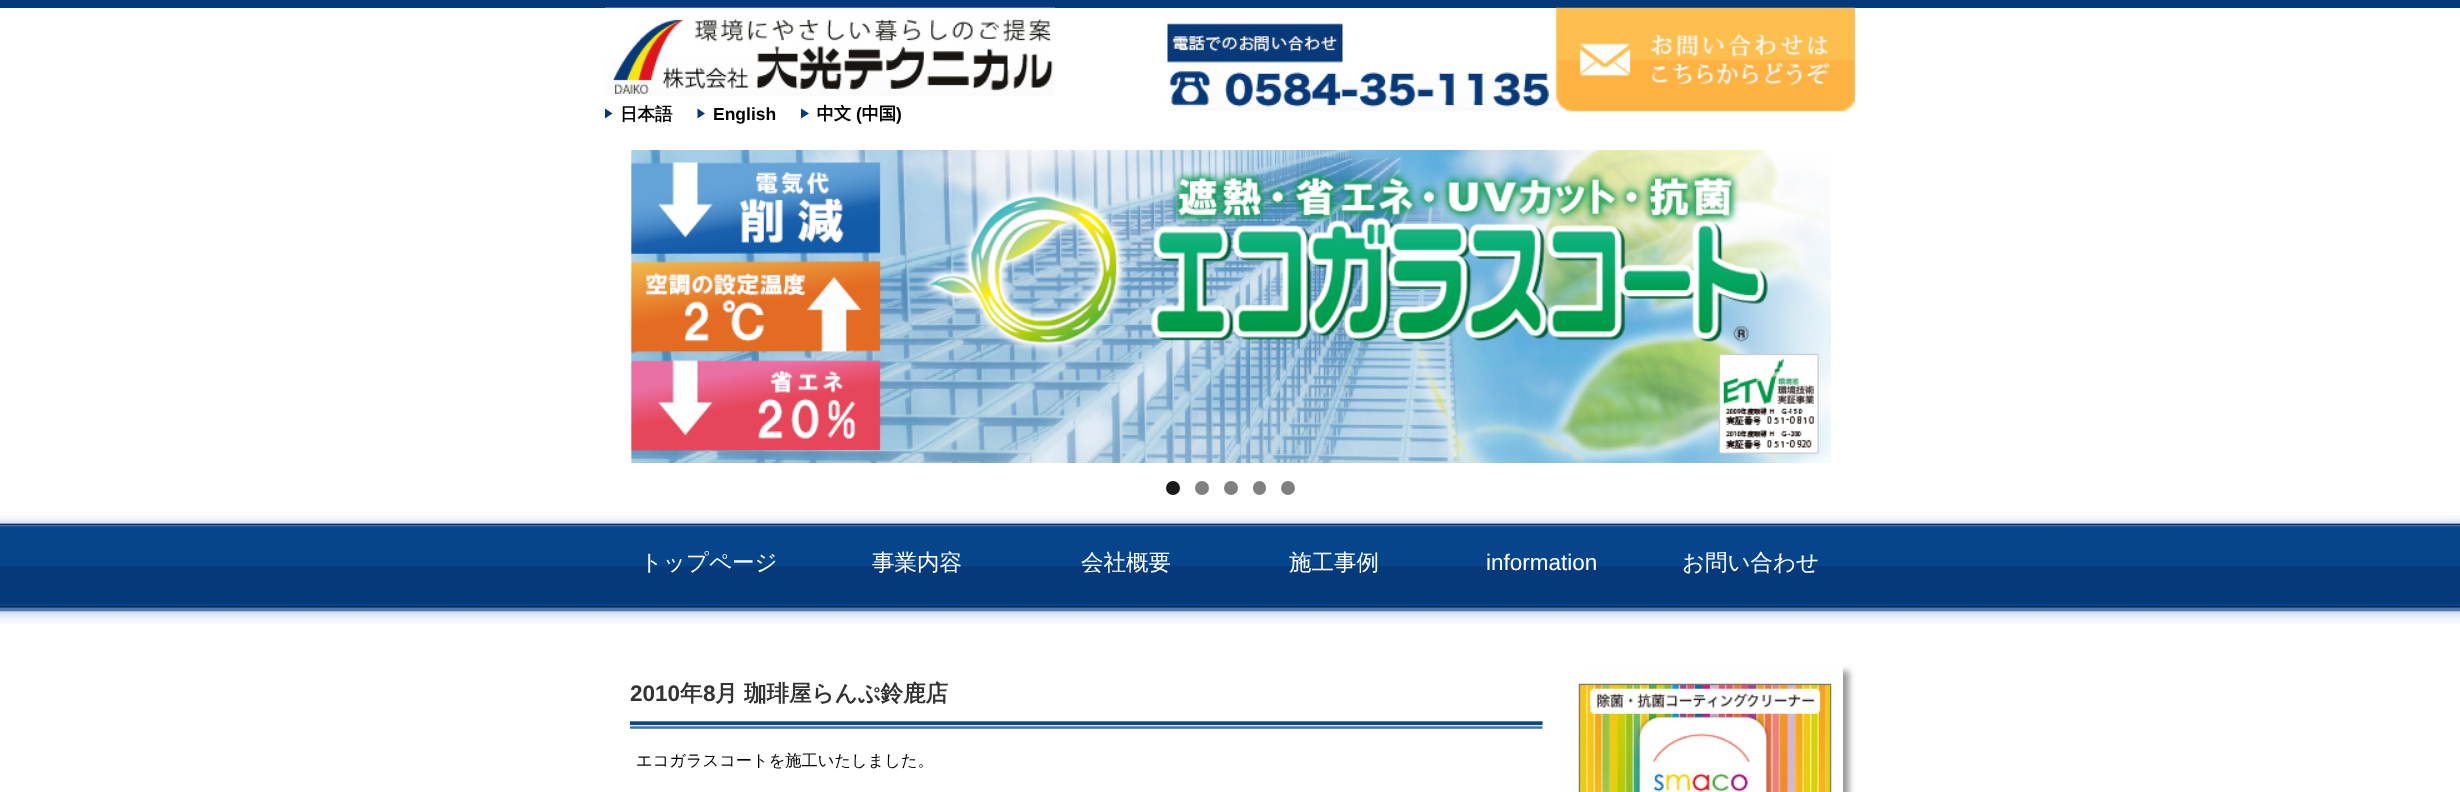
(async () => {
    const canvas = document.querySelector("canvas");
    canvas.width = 2460;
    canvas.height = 792;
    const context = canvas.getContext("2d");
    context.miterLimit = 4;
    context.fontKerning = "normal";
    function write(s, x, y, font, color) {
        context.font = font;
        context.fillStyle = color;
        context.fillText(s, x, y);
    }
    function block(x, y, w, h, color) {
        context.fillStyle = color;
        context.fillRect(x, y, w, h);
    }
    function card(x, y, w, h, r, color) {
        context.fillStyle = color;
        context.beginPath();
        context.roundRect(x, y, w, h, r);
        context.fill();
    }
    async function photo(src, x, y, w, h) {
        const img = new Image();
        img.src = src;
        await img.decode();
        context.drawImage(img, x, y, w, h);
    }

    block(0, 0, 2460, 792, "rgb(255, 255, 255)");
    block(0, 0, 2460, 8, "rgb(6, 57, 122)");
    await photo("media/1.png", 1167, 23, 389, 88);
    await photo("media/2.png", 1556, 7, 299, 105);
    await photo("media/3.png", 605, 7, 450, 89);
    context.beginPath();
    context.moveTo(605, 118.5);
    context.lineTo(605, 108.5);
    context.lineTo(612.5, 113.5);
    context.closePath();
    context.fill();
    write("日本語", 620, 120, "bold 17.5px WenQuanYi Zen Hei", "rgb(0, 0, 0)");
    context.fillStyle = "rgb(6, 57, 122)";
    context.beginPath();
    context.moveTo(697.5, 118.5);
    context.lineTo(697.5, 108.5);
    context.lineTo(705, 113.5);
    context.closePath();
    context.fill();
    write("English", 713, 120, "bold 17.5px Liberation Sans", "rgb(0, 0, 0)");
    context.fillStyle = "rgb(6, 57, 122)";
    context.beginPath();
    context.moveTo(801, 118.5);
    context.lineTo(801, 108.5);
    context.lineTo(809, 113.5);
    context.closePath();
    context.fill();
    write("中文", 816, 120, "bold 17.5px Noto Sans CJK SC", "rgb(0, 0, 0)");
    write("(", 856, 120, "bold 17.5px Liberation Sans", "rgb(0, 0, 0)");
    write("中国", 861, 120, "bold 17.5px Noto Sans CJK SC", "rgb(0, 0, 0)");
    write(")", 896, 120, "bold 17.5px Liberation Sans", "rgb(0, 0, 0)");
    await photo("media/4.png", 631, 150, 1200, 313);
    context.fillStyle = "rgb(26, 26, 26)";
    context.beginPath();
    context.arc(1173, 488, 7, 0, Math.PI * 2);
    context.fill();
    context.fillStyle = "rgb(128, 128, 128)";
    context.beginPath();
    context.arc(1202, 488, 7, 0, Math.PI * 2);
    context.fill();
    context.beginPath();
    context.arc(1231, 488, 7, 0, Math.PI * 2);
    context.fill();
    card(1253, 481, 13, 14, 6.5, "rgb(128, 128, 128)");
    context.beginPath();
    context.arc(1288, 488, 7, 0, Math.PI * 2);
    context.fill();
    await photo("media/5.png", 0, 515, 2460, 109);
    write("トップページ", 640, 570, "500 22.5px WenQuanYi Zen Hei", "rgb(255, 255, 255)");
    write("事業内容", 872, 570, "500 22.5px WenQuanYi Zen Hei", "rgb(255, 255, 255)");
    write("会社概要", 1081, 570, "500 22.5px WenQuanYi Zen Hei", "rgb(255, 255, 255)");
    write("施工事例", 1289, 570, "500 22.5px WenQuanYi Zen Hei", "rgb(255, 255, 255)");
    write("information", 1486, 570, "22.5px Liberation Sans", "rgb(255, 255, 255)");
    write("お問い合わせ", 1682, 570, "500 22.5px WenQuanYi Zen Hei", "rgb(255, 255, 255)");
    await photo("media/6.png", 630, 721, 913, 8);
    write("2010", 630, 701, "bold 22.5px Liberation Sans", "rgb(51, 51, 51)");
    write("年", 680, 701, "bold 22.5px WenQuanYi Zen Hei", "rgb(51, 51, 51)");
    write("8", 703, 701, "bold 22.5px Liberation Sans", "rgb(51, 51, 51)");
    write("月", 715, 701, "bold 22.5px WenQuanYi Zen Hei", "rgb(51, 51, 51)");
    write("珈琲屋らんぷ鈴鹿店", 744, 701, "bold 22.5px WenQuanYi Zen Hei", "rgb(51, 51, 51)");
    write("エコガラスコートを施工いたしました。", 636, 766, "500 16.25px WenQuanYi Zen Hei", "rgb(0, 0, 0)");
    context.save();
    context.beginPath();
    context.moveTo(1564, 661);
    context.lineTo(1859, 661);
    context.lineTo(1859, 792);
    context.lineTo(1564, 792);
    context.closePath();
    context.moveTo(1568, 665);
    context.lineTo(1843, 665);
    context.lineTo(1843, 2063);
    context.lineTo(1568, 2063);
    context.closePath();
    context.clip("evenodd");
    context.fillStyle = "rgba(0, 0, 0, 0.4)";
    context.filter = "blur(3px)";
    context.beginPath();
    context.rect(1574, 671, 275, 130);
    context.fill();
    context.filter = "none";
    context.restore();
    await photo("media/7.png", 1578, 683, 254, 109);
})();
